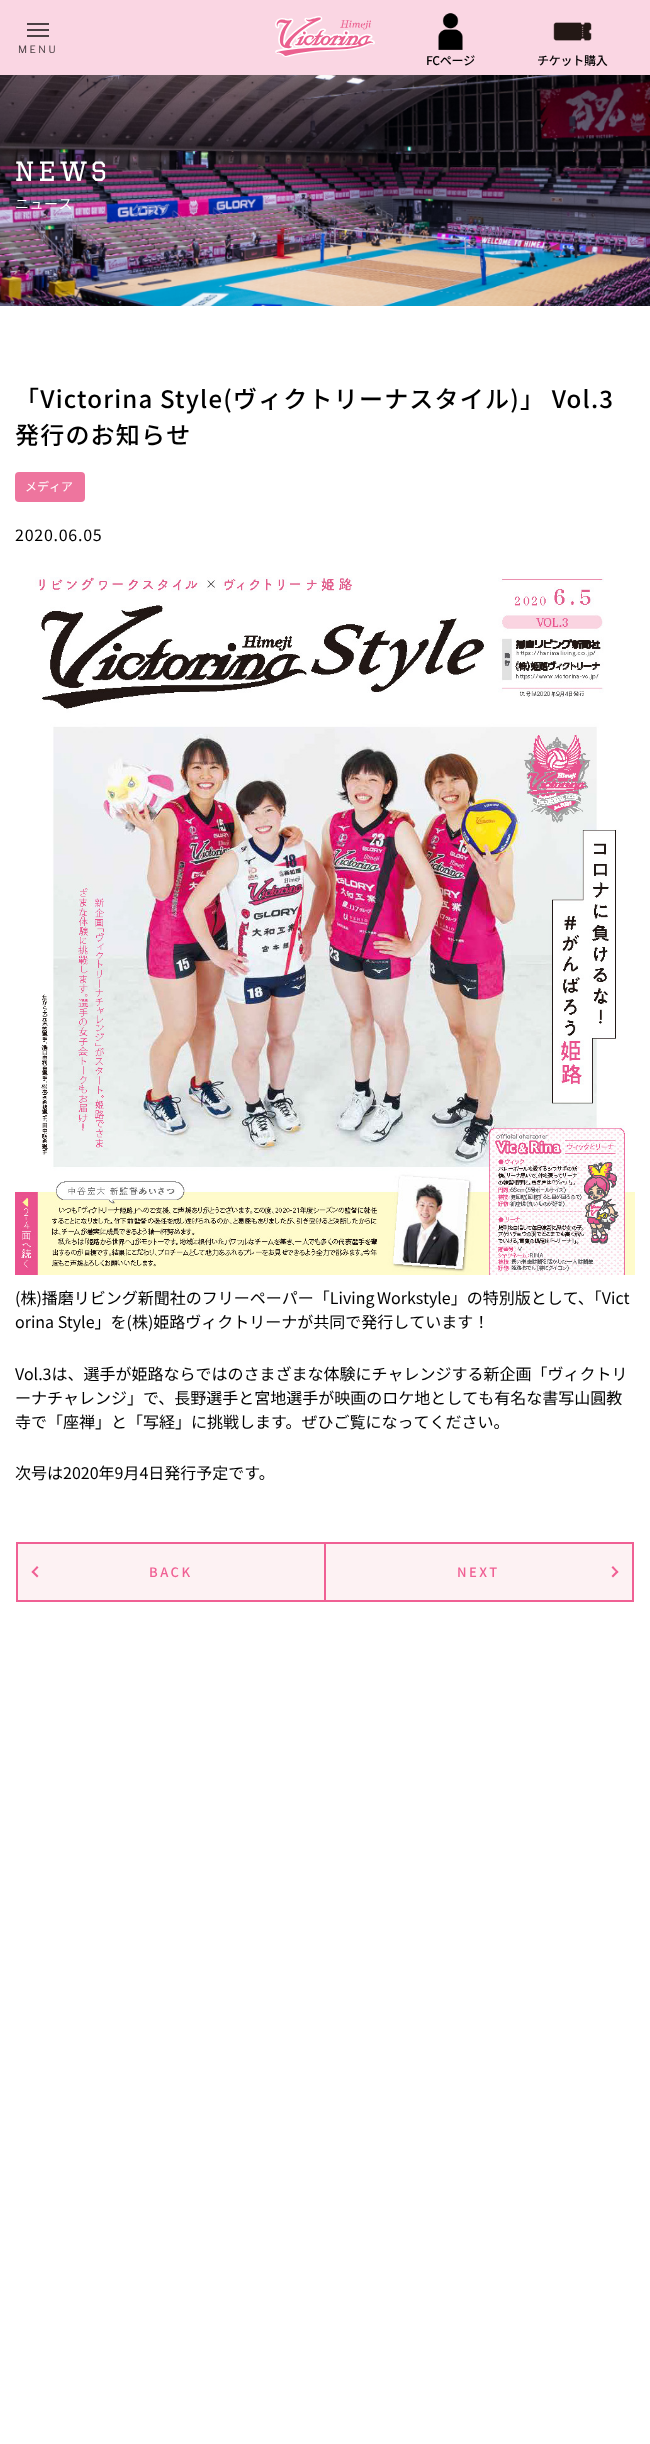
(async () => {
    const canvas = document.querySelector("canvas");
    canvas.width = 650;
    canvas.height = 2444;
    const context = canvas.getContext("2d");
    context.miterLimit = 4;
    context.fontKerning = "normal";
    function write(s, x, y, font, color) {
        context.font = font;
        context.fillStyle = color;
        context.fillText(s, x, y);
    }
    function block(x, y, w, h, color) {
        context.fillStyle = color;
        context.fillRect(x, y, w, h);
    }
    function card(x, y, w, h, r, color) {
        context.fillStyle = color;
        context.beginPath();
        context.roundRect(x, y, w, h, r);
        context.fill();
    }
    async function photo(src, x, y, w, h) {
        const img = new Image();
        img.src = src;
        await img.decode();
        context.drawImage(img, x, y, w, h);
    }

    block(0, 0, 650, 2444, "rgb(255, 255, 255)");
    block(0, 0, 650, 75, "rgb(250, 214, 227)");
    block(27, 23, 22, 2, "rgb(75, 64, 68)");
    block(27, 29, 22, 2, "rgb(75, 64, 68)");
    block(27, 35, 22, 2, "rgb(75, 64, 68)");
    context.letterSpacing = "2.5px";
    write("MENU", 18, 53, "10px Libre Franklin", "rgb(75, 64, 68)");
    await photo("media/1.png", 275, 16, 100, 41);
    await photo("media/2.png", 438, 13, 25, 37);
    context.letterSpacing = "-0.25px";
    write("FCページ", 426, 65, "500 12px Noto Sans JP", "rgb(0, 0, 0)");
    await photo("media/3.png", 553, 22, 39, 19);
    write("チケット購入", 537, 65, "500 12px Noto Sans JP", "rgb(0, 0, 0)");
    await photo("media/4.png", 0, 75, 650, 231);
    context.letterSpacing = "0px";
    write("クラブ", 131, 215, "bold 13px Noto Sans JP", "rgb(90, 113, 194)");
    write("・", 303, 215, "bold 13px Noto Sans JP", "rgb(113, 93, 112)");
    write("GAME", 479, 235, "bold 11px Noto Sans JP", "rgb(121, 89, 137)");
    context.letterSpacing = "5px";
    write("NEWS", 15, 181, "28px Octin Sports", "rgb(255, 255, 255)");
    context.letterSpacing = "0.5px";
    write("ニュース", 15, 209, "14px Noto Sans JP", "rgb(255, 255, 255)");
    context.letterSpacing = "1.2px";
    write("「Victorina Style(ヴィクトリーナスタイル)」 Vol.3", 15, 408, "500 24px Noto Sans JP", "rgb(0, 0, 0)");
    write("発行のお知らせ", 15, 444, "500 24px Noto Sans JP", "rgb(0, 0, 0)");
    card(15, 472, 70, 30, 4, "rgb(238, 117, 158)");
    context.letterSpacing = "0px";
    write("メディア", 25, 491, "12px Noto Sans JP", "rgb(255, 255, 255)");
    context.letterSpacing = "0.75px";
    write("2020.06.05", 15, 541, "16px Noto Sans JP", "rgb(0, 0, 0)");
    await photo("media/5.png", 15, 577, 620, 698);
    context.letterSpacing = "0px";
    context.wordSpacing = "-1px";
    write("(株)播磨リビング新聞社のフリーペーパー「Living Workstyle」の特別版として、「Vict", 15, 1304, "16px Noto Sans JP", "rgb(0, 0, 0)");
    context.wordSpacing = "0px";
    write("orina Style」を(株)姫路ヴィクトリーナが共同で発行しています！", 15, 1328, "16px Noto Sans JP", "rgb(0, 0, 0)");
    write("Vol.3は、選手が姫路ならではのさまざまな体験にチャレンジする新企画「ヴィクトリ", 15, 1380, "16px Noto Sans JP", "rgb(0, 0, 0)");
    write("ーナチャレンジ」で、長野選手と宮地選手が映画のロケ地としても有名な書写山圓教", 15, 1404, "16px Noto Sans JP", "rgb(0, 0, 0)");
    write("寺で「座禅」と「写経」に挑戦します。ぜひご覧になってください。", 15, 1428, "16px Noto Sans JP", "rgb(0, 0, 0)");
    write("次号は2020年9月4日発行予定です。", 15, 1479, "16px Noto Sans JP", "rgb(0, 0, 0)");
    context.fillStyle = "rgb(253, 242, 243)";
    context.beginPath();
    context.rect(17, 1543, 308, 58);
    context.fill();
    context.strokeStyle = "rgb(240, 96, 148)";
    context.lineWidth = 2;
    context.stroke();
    context.fillStyle = "rgb(240, 96, 148)";
    context.beginPath();
    context.moveTo(37, 1577.5);
    context.lineTo(31.5, 1572);
    context.lineTo(33, 1570.5);
    context.lineTo(38.5, 1576);
    context.closePath();
    context.fill();
    context.beginPath();
    context.moveTo(33, 1573);
    context.lineTo(31.5, 1572);
    context.lineTo(37, 1566);
    context.lineTo(38.5, 1567.5);
    context.closePath();
    context.fill();
    context.letterSpacing = "2.5px";
    write("BACK", 149, 1577, "500 13px Noto Sans JP", "rgb(240, 96, 148)");
    context.fillStyle = "rgb(253, 242, 243)";
    context.beginPath();
    context.rect(325, 1543, 308, 58);
    context.fill();
    context.stroke();
    write("NEXT", 457, 1577, "500 13px Noto Sans JP", "rgb(240, 96, 148)");
    context.beginPath();
    context.moveTo(613, 1566);
    context.lineTo(618.5, 1572);
    context.lineTo(617, 1573);
    context.lineTo(611.5, 1567.5);
    context.closePath();
    context.fill();
    context.beginPath();
    context.moveTo(617, 1570.5);
    context.lineTo(618.5, 1572);
    context.lineTo(613, 1577.5);
    context.lineTo(611.5, 1576);
    context.closePath();
    context.fill();
})();
